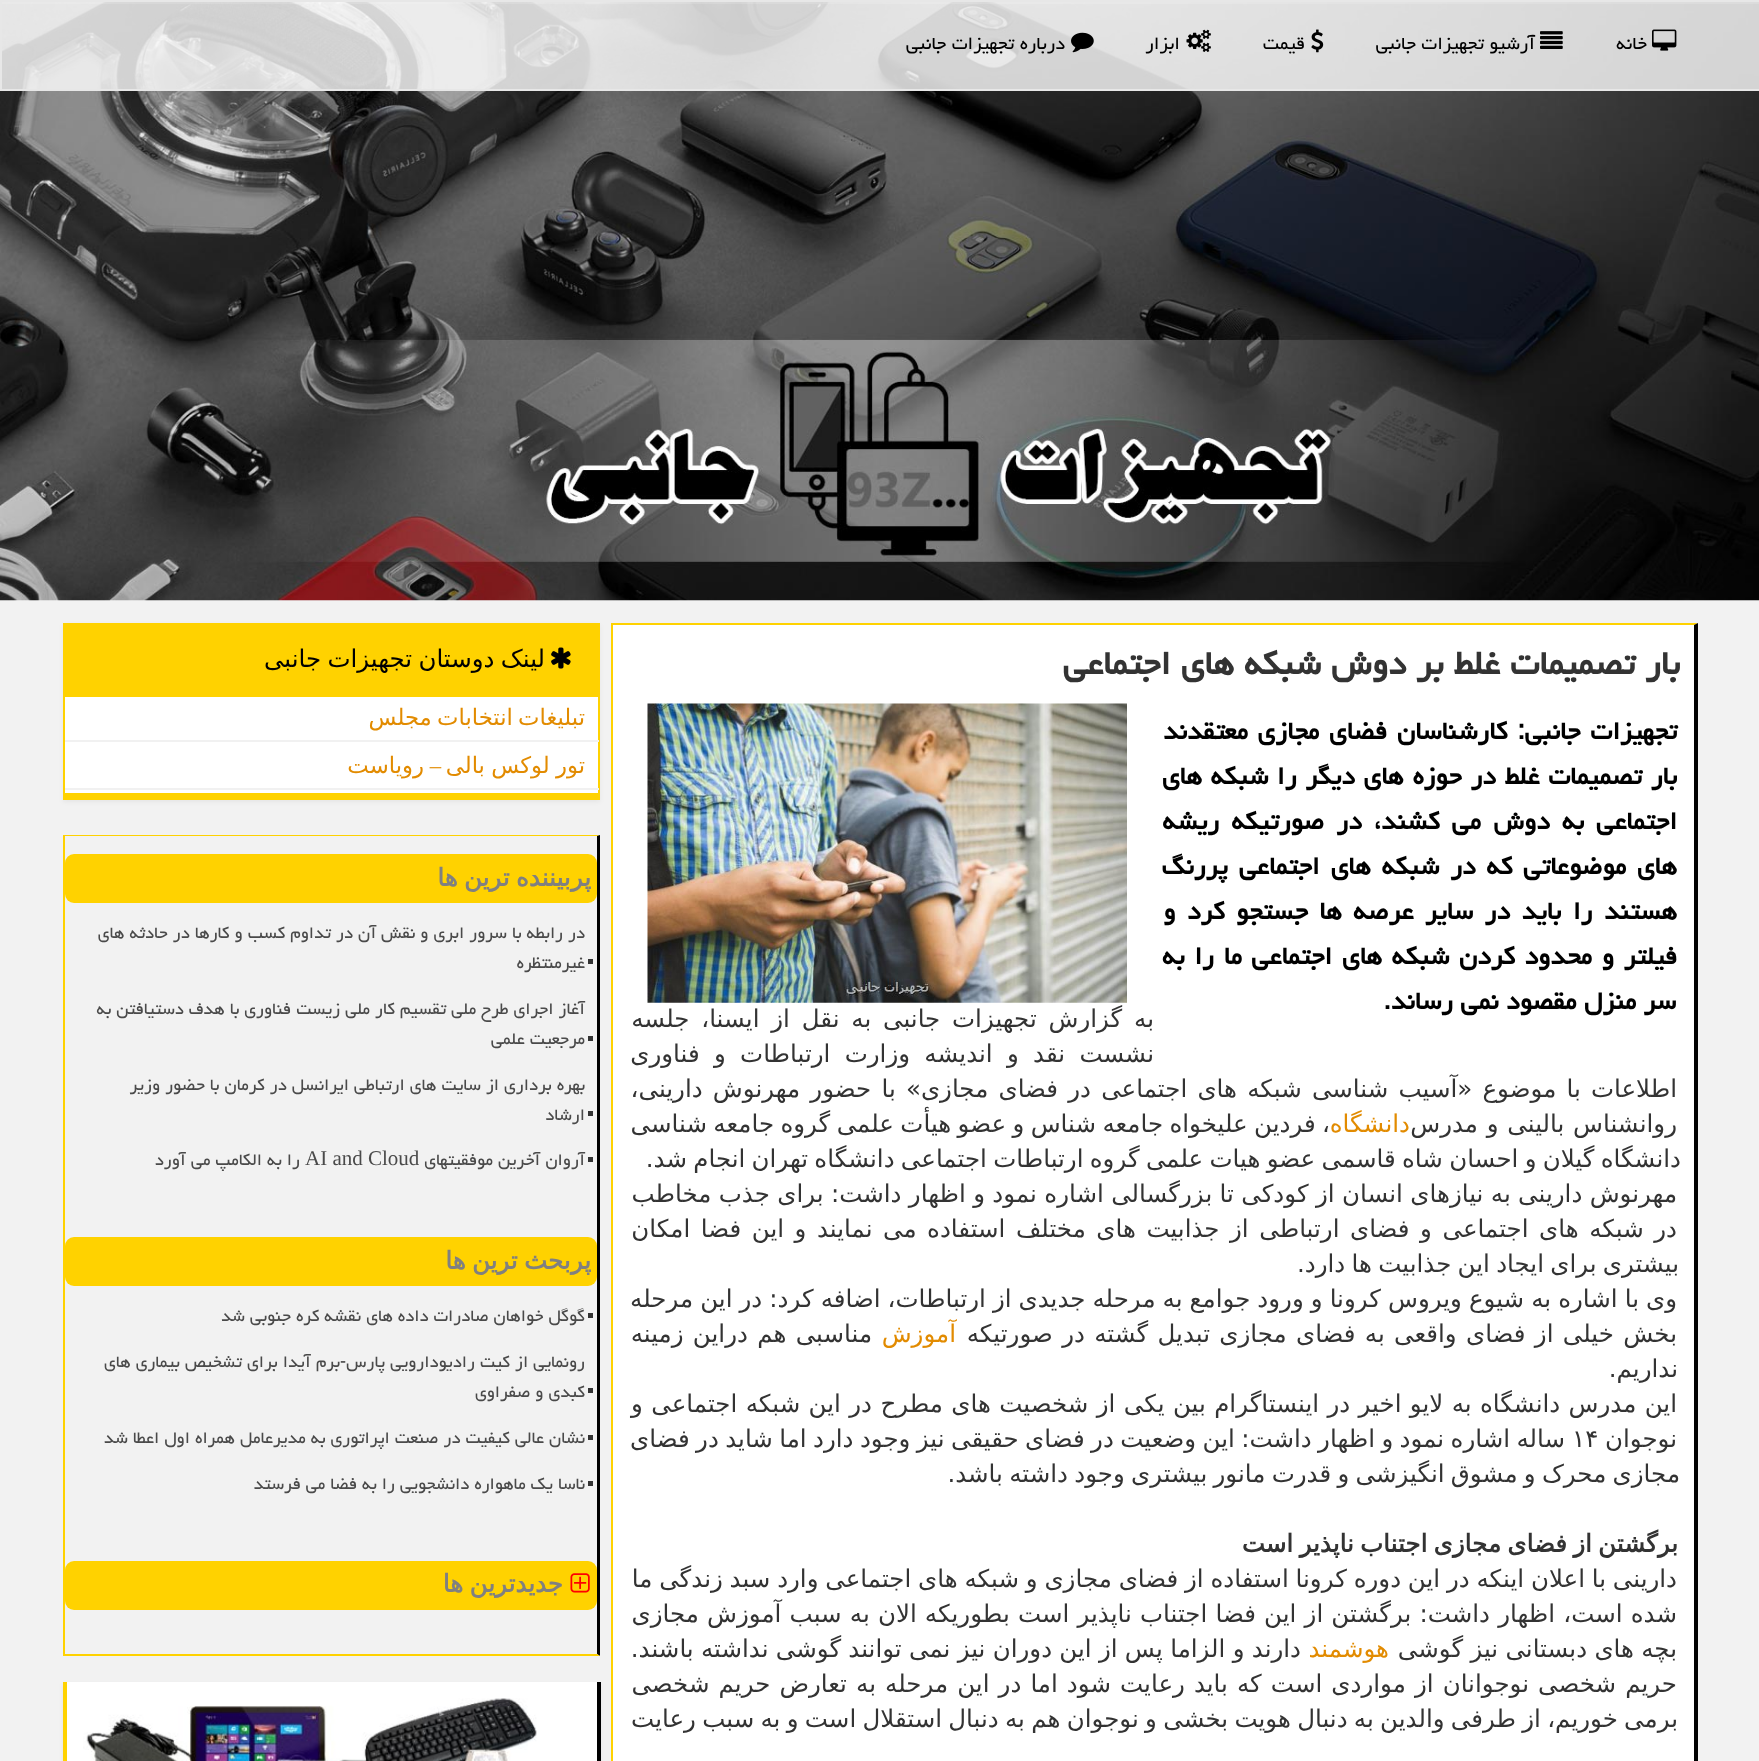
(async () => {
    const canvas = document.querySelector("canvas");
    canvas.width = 1759;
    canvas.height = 1761;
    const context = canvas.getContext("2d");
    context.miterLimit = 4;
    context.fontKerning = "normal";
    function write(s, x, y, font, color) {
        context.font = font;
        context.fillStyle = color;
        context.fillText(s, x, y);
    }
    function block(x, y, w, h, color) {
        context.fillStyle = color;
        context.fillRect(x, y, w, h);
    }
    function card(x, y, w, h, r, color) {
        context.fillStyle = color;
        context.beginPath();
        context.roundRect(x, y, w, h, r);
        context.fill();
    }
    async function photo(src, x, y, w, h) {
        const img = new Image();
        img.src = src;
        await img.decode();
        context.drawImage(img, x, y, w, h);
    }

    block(0, 0, 1759, 1761, "rgb(242, 242, 242)");
    await photo("media/1.png", 0, 2, 1759, 599);
    block(2, 2, 1757, 87, "rgba(255, 255, 255, 0.8)");
    block(2, 2, 1757, 2, "rgba(255, 255, 255, 0.15)");
    context.strokeStyle = "rgb(231, 231, 231)";
    context.lineWidth = 2;
    context.strokeRect(1, 1, 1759, 89);
    await photo("media/2.png", 1652, 29, 25, 22);
    context.direction = "rtl";
    write("خانه", 1647, 49, "22.75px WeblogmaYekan", "rgb(0, 0, 0)");
    await photo("media/3.png", 1540, 31, 23, 18);
    write("آرشیو تجهیزات جانبی", 1535, 49, "22.75px WeblogmaYekan", "rgb(0, 0, 0)");
    await photo("media/4.png", 1311, 29, 13, 24);
    write("قیمت", 1305, 49, "22.75px WeblogmaYekan", "rgb(0, 0, 0)");
    await photo("media/5.png", 1186, 29, 25, 23);
    write("ابزار", 1180, 49, "22.75px WeblogmaYekan", "rgb(0, 0, 0)");
    await photo("media/6.png", 1071, 32, 23, 21);
    write("درباره تجهیزات جانبی", 1065, 49, "22.75px WeblogmaYekan", "rgb(0, 0, 0)");
    block(613, 625, 1081, 1136, "rgb(255, 255, 255)");
    context.fillStyle = "rgb(255, 210, 0)";
    context.beginPath();
    context.moveTo(611, 623);
    context.lineTo(1698, 623);
    context.lineTo(1694, 625);
    context.lineTo(612, 625);
    context.closePath();
    context.fill();
    context.fillStyle = "rgb(0, 0, 0)";
    context.beginPath();
    context.moveTo(1698, 623);
    context.lineTo(1698, 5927);
    context.lineTo(1694, 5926);
    context.lineTo(1694, 625);
    context.closePath();
    context.fill();
    block(611, 623, 2, 1138, "rgb(255, 210, 0)");
    write("بار تصمیمات غلط بر دوش شبكه های اجتماعی", 1680, 674, "bold 42px WeblogmaYekan", "rgb(51, 51, 51)");
    context.wordSpacing = "2.4px";
    write("تجهیزات جانبی: کارشناسان فضای مجازی معتقدند", 1677, 739, "bold 31.5px WeblogmaYekan", "rgb(0, 0, 0)");
    context.wordSpacing = "1.25px";
    write("بار تصمیمات غلط در حوزه های دیگر را شبکه های", 1677, 784, "bold 31.5px WeblogmaYekan", "rgb(0, 0, 0)");
    context.wordSpacing = "4.75px";
    write("اجتماعی به دوش می کشند، در صورتیکه ریشه", 1677, 829, "bold 31.5px WeblogmaYekan", "rgb(0, 0, 0)");
    context.wordSpacing = "3.5px";
    write("های موضوعاتی که در شبکه های اجتماعی پررنگ", 1677, 874, "bold 31.5px WeblogmaYekan", "rgb(0, 0, 0)");
    context.wordSpacing = "4px";
    write("هستند را باید در سایر عرصه ها جستجو کرد و", 1677, 919, "bold 31.5px WeblogmaYekan", "rgb(0, 0, 0)");
    context.wordSpacing = "2.25px";
    write("فیلتر و محدود کردن شبکه های اجتماعی ما را به", 1677, 964, "bold 31.5px WeblogmaYekan", "rgb(0, 0, 0)");
    context.wordSpacing = "0px";
    write("سر منزل مقصود نمی رساند.", 1676, 1009, "bold 31.5px WeblogmaYekan", "rgb(0, 0, 0)");
    await photo("media/7.png", 647, 703, 480, 300);
    context.wordSpacing = "4px";
    write("به گزارش تجهیزات جانبی به نقل از ایسنا، جلسه", 1154, 1027, "24.5px DejaVu Sans", "rgb(51, 51, 51)");
    context.wordSpacing = "6.5px";
    write("نشست نقد و اندیشه وزارت ارتباطات و فناوری", 1154, 1062, "24.5px DejaVu Sans", "rgb(51, 51, 51)");
    context.wordSpacing = "2.4px";
    write("اطلاعات با موضوع «آسیب شناسی شبکه های اجتماعی در فضای مجازی» با حضور مهرنوش دارینی،", 1677, 1097, "24.5px DejaVu Sans", "rgb(51, 51, 51)");
    context.wordSpacing = "1px";
    write("روانشناس بالینی و مدرس", 1677, 1132, "24.5px DejaVu Sans", "rgb(51, 51, 51)");
    context.wordSpacing = "0px";
    write("دانشگاه", 1410, 1132, "24.5px DejaVu Sans", "rgb(226, 139, 0)");
    context.wordSpacing = "-1.4px";
    write("، فردین علیخواه جامعه شناس و عضو هیأت علمی گروه جامعه شناسی", 1330, 1132, "24.5px DejaVu Sans", "rgb(51, 51, 51)");
    context.wordSpacing = "-1.5px";
    write("دانشگاه گیلان و احسان شاه قاسمی عضو هیات علمی گروه ارتباطات اجتماعی دانشگاه تهران انجام شد.", 1681, 1167, "24.5px DejaVu Sans", "rgb(51, 51, 51)");
    context.wordSpacing = "-0.4px";
    write("مهرنوش دارینی به نیازهای انسان از کودکی تا بزرگسالی اشاره نمود و اظهار داشت: برای جذب مخاطب", 1677, 1202, "24.5px DejaVu Sans", "rgb(51, 51, 51)");
    context.wordSpacing = "2.75px";
    write("در شبکه های اجتماعی و فضای ارتباطی از جذابیت های مختلف استفاده می نمایند و این فضا امکان", 1677, 1237, "24.5px DejaVu Sans", "rgb(51, 51, 51)");
    context.wordSpacing = "-1.5px";
    write("بیشتری برای ایجاد این جذابیت ها دارد.", 1679, 1272, "24.5px DejaVu Sans", "rgb(51, 51, 51)");
    context.wordSpacing = "-0.75px";
    write("وی با اشاره به شیوع ویروس کرونا و ورود جوامع به مرحله جدیدی از ارتباطات، اضافه کرد: در این مرحله", 1677, 1307, "24.5px DejaVu Sans", "rgb(51, 51, 51)");
    context.wordSpacing = "1.5px";
    write("بخش خیلی از فضای واقعی به فضای مجازی تبدیل گشته در صورتیکه", 1677, 1342, "24.5px DejaVu Sans", "rgb(51, 51, 51)");
    context.wordSpacing = "0px";
    write("آموزش", 956, 1342, "24.5px DejaVu Sans", "rgb(226, 139, 0)");
    context.wordSpacing = "1.5px";
    write("مناسبی هم دراین زمینه", 872, 1342, "24.5px DejaVu Sans", "rgb(51, 51, 51)");
    context.wordSpacing = "0px";
    write("نداریم.", 1678, 1377, "24.5px DejaVu Sans", "rgb(51, 51, 51)");
    context.wordSpacing = "0.6px";
    write("این مدرس دانشگاه به لایو اخیر در اینستاگرام بین یکی از شخصیت های مطرح در این شبکه اجتماعی و", 1677, 1412, "24.5px DejaVu Sans", "rgb(51, 51, 51)");
    context.wordSpacing = "0px";
    write("نوجوان", 1677, 1447, "24.5px DejaVu Sans", "rgb(51, 51, 51)");
    context.wordSpacing = "-1.4px";
    write("ساله اشاره نمود و اظهار داشت: این وضعیت در فضای حقیقی نیز وجود دارد اما شاید در فضای", 1565, 1447, "24.5px DejaVu Sans", "rgb(51, 51, 51)");
    context.wordSpacing = "0px";
    context.direction = "ltr";
    write("۱۴", 1572, 1447, "24.5px DejaVu Sans", "rgb(51, 51, 51)");
    context.wordSpacing = "-1.5px";
    context.direction = "rtl";
    write("مجازی محرک و مشوق انگیزشی و قدرت مانور بیشتری وجود داشته باشد.", 1680, 1482, "24.5px DejaVu Sans", "rgb(51, 51, 51)");
    write("برگشتن از فضای مجازی اجتناب ناپذیر است", 1678, 1552, "bold 24.5px DejaVu Sans", "rgb(51, 51, 51)");
    context.wordSpacing = "-1px";
    write("دارینی با اعلان اینکه در این دوره کرونا استفاده از فضای مجازی و شبکه های اجتماعی وارد سبد زندگی ما", 1677, 1587, "24.5px DejaVu Sans", "rgb(51, 51, 51)");
    context.wordSpacing = "0.4px";
    write("شده است، اظهار داشت: برگشتن از این فضا اجتناب ناپذیر است بطوریکه الان به سبب آموزش مجازی", 1677, 1622, "24.5px DejaVu Sans", "rgb(51, 51, 51)");
    context.wordSpacing = "-0.5px";
    write("بچه های دبستانی نیز گوشی", 1677, 1657, "24.5px DejaVu Sans", "rgb(51, 51, 51)");
    context.wordSpacing = "0px";
    write("هوشمند", 1389, 1657, "24.5px DejaVu Sans", "rgb(226, 139, 0)");
    context.wordSpacing = "-0.5px";
    write("دارند و الزاما پس از این دوران نیز نمی توانند گوشی نداشته باشند.", 1301, 1657, "24.5px DejaVu Sans", "rgb(51, 51, 51)");
    context.wordSpacing = "1.3px";
    write("حریم شخصی نوجوانان از مواردی است که باید رعایت شود اما در این مرحله به تعارض حریم شخصی", 1677, 1692, "24.5px DejaVu Sans", "rgb(51, 51, 51)");
    context.wordSpacing = "-1.5px";
    write("برمی خوریم، از طرفی والدین به دنبال هویت بخشی و نوجوان هم به دنبال استقلال است و به سبب رعایت", 1678, 1727, "24.5px DejaVu Sans", "rgb(51, 51, 51)");
    context.fillStyle = "rgba(0, 0, 0, 0.05)";
    context.filter = "blur(2px)";
    context.beginPath();
    context.rect(63, 625, 537, 177);
    context.fill();
    context.filter = "none";
    block(65, 697, 533, 96, "rgb(255, 255, 255)");
    context.strokeStyle = "rgb(255, 210, 0)";
    context.strokeRect(64, 624, 535, 175);
    block(65, 625, 533, 72, "rgb(255, 210, 0)");
    await photo("media/8.png", 551, 647, 20, 22);
    write("لینک دوستان تجهیزات جانبی", 545, 667, "24.5px DejaVu Sans", "rgb(0, 0, 0)");
    block(65, 793, 534, 5, "rgb(255, 210, 0)");
    block(65, 740, 534, 2, "rgb(241, 241, 241)");
    context.wordSpacing = "-2px";
    write("تبلیغات انتخابات مجلس", 585, 725, "22.75px DejaVu Sans", "rgb(226, 139, 0)");
    block(65, 788, 534, 2, "rgb(241, 241, 241)");
    context.wordSpacing = "-1px";
    write("تور لوکس بالی", 585, 773, "22.75px DejaVu Sans", "rgb(226, 139, 0)");
    context.wordSpacing = "0px";
    write("–", 441, 773, "22.75px Liberation Serif", "rgb(226, 139, 0)");
    write("رویاست", 424, 773, "22.75px DejaVu Sans", "rgb(226, 139, 0)");
    context.fillStyle = "rgb(255, 210, 0)";
    context.beginPath();
    context.moveTo(63, 835);
    context.lineTo(600, 835);
    context.lineTo(597, 836);
    context.lineTo(65, 836);
    context.closePath();
    context.fill();
    context.fillStyle = "rgb(0, 0, 0)";
    context.beginPath();
    context.moveTo(600, 835);
    context.lineTo(600, 1656);
    context.lineTo(597, 1654);
    context.lineTo(597, 836);
    context.closePath();
    context.fill();
    context.fillStyle = "rgb(255, 210, 0)";
    context.beginPath();
    context.moveTo(600, 1656);
    context.lineTo(63, 1656);
    context.lineTo(65, 1654);
    context.lineTo(597, 1654);
    context.closePath();
    context.fill();
    block(63, 835, 2, 821, "rgb(255, 210, 0)");
    card(65, 854, 532, 49, 9, "rgb(255, 210, 0)");
    context.wordSpacing = "-1.5px";
    write("پربیننده ترین ها", 591, 886, "bold 24.5px DejaVu Sans", "rgb(128, 128, 128)");
    block(588, 959, 5, 5, "rgb(51, 51, 51)");
    context.wordSpacing = "0px";
    write("در رابطه با سرور ابری و نقش آن در تداوم کسب و کارها در حادثه های", 585, 938, "21px WeblogmaYekan", "rgb(74, 74, 74)");
    write("غیرمنتظره", 585, 968, "21px WeblogmaYekan", "rgb(74, 74, 74)");
    block(588, 1036, 5, 5, "rgb(51, 51, 51)");
    write("آغاز اجرای طرح ملی تقسیم کار ملی زیست فناوری با هدف دستیافتن به", 585, 1014, "21px WeblogmaYekan", "rgb(74, 74, 74)");
    write("مرجعیت علمی", 585, 1044, "21px WeblogmaYekan", "rgb(74, 74, 74)");
    block(588, 1111, 5, 5, "rgb(51, 51, 51)");
    write("بهره برداری از سایت های ارتباطی ایرانسل در کرمان با حضور وزیر", 585, 1090, "21px WeblogmaYekan", "rgb(74, 74, 74)");
    write("ارشاد", 585, 1120, "21px WeblogmaYekan", "rgb(74, 74, 74)");
    block(588, 1157, 5, 5, "rgb(51, 51, 51)");
    write("آروان آخرین موفقیتهای", 585, 1165, "21px WeblogmaYekan", "rgb(74, 74, 74)");
    context.direction = "ltr";
    write("AI and Cloud", 305, 1165, "21px Liberation Serif", "rgb(74, 74, 74)");
    context.direction = "rtl";
    write("را به الکامپ می آورد", 300, 1165, "21px WeblogmaYekan", "rgb(74, 74, 74)");
    card(65, 1237, 532, 49, 9, "rgb(255, 210, 0)");
    context.wordSpacing = "-1.5px";
    write("پربحث ترین ها", 591, 1269, "bold 24.5px DejaVu Sans", "rgb(128, 128, 128)");
    block(588, 1313, 5, 5, "rgb(51, 51, 51)");
    context.wordSpacing = "0px";
    write("گوگل خواهان صادرات داده های نقشه کره جنوبی شد", 585, 1321, "21px WeblogmaYekan", "rgb(74, 74, 74)");
    block(588, 1388, 5, 5, "rgb(51, 51, 51)");
    write("رونمایی از کیت رادیودارویی پارس-برم آیدا برای تشخیص بیماری های", 585, 1367, "21px WeblogmaYekan", "rgb(74, 74, 74)");
    write("کبدی و صفراوی", 585, 1397, "21px WeblogmaYekan", "rgb(74, 74, 74)");
    block(588, 1435, 5, 5, "rgb(51, 51, 51)");
    write("نشان عالی کیفیت در صنعت اپراتوری به مدیرعامل همراه اول اعطا شد", 585, 1443, "21px WeblogmaYekan", "rgb(74, 74, 74)");
    block(588, 1481, 5, 5, "rgb(51, 51, 51)");
    write("ناسا یک ماهواره دانشجویی را به فضا می فرستد", 585, 1489, "21px WeblogmaYekan", "rgb(74, 74, 74)");
    card(65, 1561, 532, 49, 9, "rgb(255, 210, 0)");
    await photo("media/9.png", 570, 1573, 20, 20);
    context.wordSpacing = "-1.5px";
    write("جدیدترین ها", 563, 1592, "bold 24.5px DejaVu Sans", "rgb(128, 128, 128)");
    context.fillStyle = "rgba(0, 0, 0, 0.07)";
    context.filter = "blur(2px)";
    context.beginPath();
    context.rect(63, 1684, 537, 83);
    context.fill();
    context.filter = "none";
    block(67, 1682, 530, 79, "rgb(255, 255, 255)");
    block(597, 1682, 4, 79, "rgb(0, 0, 0)");
    block(63, 1682, 4, 79, "rgb(255, 210, 0)");
    await photo("media/10.png", 83, 1698, 454, 63);
})();
